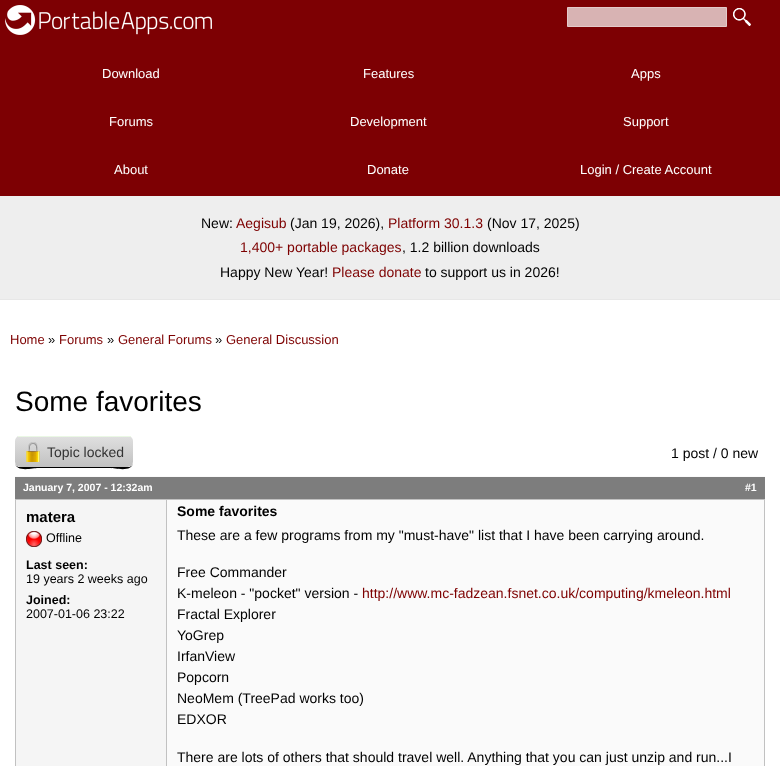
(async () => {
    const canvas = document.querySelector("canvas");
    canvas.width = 780;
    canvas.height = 766;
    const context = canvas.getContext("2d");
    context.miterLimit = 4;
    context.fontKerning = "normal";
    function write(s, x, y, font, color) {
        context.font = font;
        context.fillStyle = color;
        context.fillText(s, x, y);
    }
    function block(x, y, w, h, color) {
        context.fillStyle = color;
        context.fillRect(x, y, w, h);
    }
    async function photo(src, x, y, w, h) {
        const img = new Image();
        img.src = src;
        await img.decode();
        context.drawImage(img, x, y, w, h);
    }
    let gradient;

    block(0, 0, 780, 766, "rgb(255, 255, 255)");
    block(0, 0, 780, 196, "rgb(125, 0, 3)");
    await photo("media/1.png", 5, 5, 207, 30);
    context.fillStyle = "rgb(216, 179, 179)";
    context.beginPath();
    context.rect(567.5, 7.5, 159, 19);
    context.fill();
    context.strokeStyle = "rgb(228, 202, 202)";
    context.stroke();
    await photo("media/2.png", 733, 8, 18, 18);
    write("Download", 102, 78, "13px Arimo", "rgb(255, 255, 255)");
    write("Features", 363, 78, "13px Arimo", "rgb(255, 255, 255)");
    write("Apps", 631, 78, "13px Arimo", "rgb(255, 255, 255)");
    write("Forums", 109, 126, "13px Arimo", "rgb(255, 255, 255)");
    write("Development", 350, 126, "13px Arimo", "rgb(255, 255, 255)");
    write("Support", 623, 126, "13px Arimo", "rgb(255, 255, 255)");
    write("About", 114, 174, "13px Arimo", "rgb(255, 255, 255)");
    write("Donate", 367, 174, "13px Arimo", "rgb(255, 255, 255)");
    write("Login / Create Account", 580, 174, "13px Arimo", "rgb(255, 255, 255)");
    block(0, 196, 780, 103, "rgb(238, 238, 238)");
    block(0, 299, 780, 1, "rgb(231, 231, 231)");
    write("New:", 201, 228, "14px Arimo", "rgb(0, 0, 0)");
    write("Aegisub", 236, 228, "14px Arimo", "rgb(125, 0, 0)");
    write("(Jan 19, 2026),", 290, 228, "14px Arimo", "rgb(0, 0, 0)");
    write("Platform 30.1.3", 388, 228, "14px Arimo", "rgb(125, 0, 0)");
    write("(Nov 17, 2025)", 487, 228, "14px Arimo", "rgb(0, 0, 0)");
    write("1,400+ portable packages", 240, 252, "14px Arimo", "rgb(125, 0, 0)");
    write(", 1.2 billion downloads", 402, 252, "14px Arimo", "rgb(0, 0, 0)");
    write("Happy New Year!", 220, 277, "14px Arimo", "rgb(0, 0, 0)");
    write("Please donate", 332, 277, "14px Arimo", "rgb(125, 0, 0)");
    write("to support us in 2026!", 425, 277, "14px Arimo", "rgb(0, 0, 0)");
    write("Home", 10, 344, "13px Arimo", "rgb(125, 0, 0)");
    write("»", 48, 344, "13px Arimo", "rgb(0, 0, 0)");
    write("Forums", 59, 344, "13px Arimo", "rgb(125, 0, 0)");
    write("»", 107, 344, "13px Arimo", "rgb(0, 0, 0)");
    write("General Forums", 118, 344, "13px Arimo", "rgb(125, 0, 0)");
    write("»", 215, 344, "13px Arimo", "rgb(0, 0, 0)");
    write("General Discussion", 226, 344, "13px Arimo", "rgb(125, 0, 0)");
    write("Some favorites", 15, 411, "28px Arimo", "rgb(0, 0, 0)");
    context.beginPath();
    context.moveTo(15, 462);
    context.bezierCurveTo(15, 473, 33, 468, 38, 468);
    context.lineTo(110, 468);
    context.bezierCurveTo(115, 468, 133, 473, 133, 462);
    context.bezierCurveTo(133, 465, 131, 467, 128, 467);
    context.lineTo(20, 467);
    context.bezierCurveTo(17, 467, 15, 465, 15, 462);
    context.closePath();
    context.fill();
    context.save();
    context.beginPath();
    context.roundRect(15, 436, 118, 31, 5);
    context.clip();
    gradient = context.createLinearGradient(15, 407, 15, 437);
    gradient.addColorStop(0, "rgb(223, 223, 223)");
    gradient.addColorStop(1, "rgb(193, 193, 193)");
    context.fillStyle = gradient;
    context.fillRect(15, 436, 3, 1);
    gradient = context.createLinearGradient(15, 437, 15, 467);
    gradient.addColorStop(0, "rgb(223, 223, 223)");
    gradient.addColorStop(1, "rgb(193, 193, 193)");
    context.fillStyle = gradient;
    context.beginPath();
    context.roundRect(15, 437, 118, 30, [0, 0, 5, 5]);
    context.fill();
    context.restore();
    block(18, 436, 113, 1, "rgb(234, 248, 228)");
    await photo("media/3.png", 26, 442, 14, 20);
    write("Topic locked", 47, 457, "14px Liberation Sans", "rgb(51, 51, 51)");
    write("1 post / 0 new", 671, 458, "14px Arimo", "rgb(0, 0, 0)");
    block(15, 477, 750, 22, "rgb(125, 125, 125)");
    block(15, 476, 750, 1, "rgb(250, 250, 250)");
    block(15, 499, 750, 1, "rgb(193, 193, 193)");
    write("January 7, 2007 - 12:32am", 23, 491, "bold 10.5px Arimo", "rgb(255, 255, 255)");
    write("#1", 745, 491, "bold 10.5px Arimo", "rgb(255, 255, 255)");
    block(16, 500, 150, 266, "rgb(245, 245, 245)");
    block(764, 500, 1, 266, "rgb(193, 193, 193)");
    block(15, 500, 1, 266, "rgb(193, 193, 193)");
    write("matera", 26, 522, "bold 15px Arimo", "rgb(0, 0, 0)");
    await photo("media/4.png", 26, 531, 16, 16);
    write("Offline", 46, 542, "12.5px Arimo", "rgb(0, 0, 0)");
    write("Last seen:", 26, 569, "bold 12.5px Arimo", "rgb(0, 0, 0)");
    write("19 years 2 weeks ago", 26, 583, "12.5px Arimo", "rgb(0, 0, 0)");
    write("Joined:", 26, 604, "bold 12.5px Arimo", "rgb(0, 0, 0)");
    write("2007-01-06 23:22", 26, 618, "12.5px Arimo", "rgb(0, 0, 0)");
    block(167, 500, 597, 266, "rgb(250, 250, 250)");
    block(166, 500, 1, 266, "rgb(193, 193, 193)");
    write("Some favorites", 177, 516, "bold 14px Arimo", "rgb(0, 0, 0)");
    write("These are a few programs from my \"must-have\" list that I have been carrying around.", 177, 540, "14px Arimo", "rgb(0, 0, 0)");
    write("Free Commander", 177, 577, "14px Arimo", "rgb(0, 0, 0)");
    write("K-meleon - \"pocket\" version -", 177, 598, "14px Arimo", "rgb(0, 0, 0)");
    write("http://www.mc-fadzean.fsnet.co.uk/computing/kmeleon.html", 362, 598, "14px Arimo", "rgb(125, 0, 0)");
    write("Fractal Explorer", 177, 619, "14px Arimo", "rgb(0, 0, 0)");
    write("YoGrep", 177, 640, "14px Arimo", "rgb(0, 0, 0)");
    write("IrfanView", 177, 661, "14px Arimo", "rgb(0, 0, 0)");
    write("Popcorn", 177, 682, "14px Arimo", "rgb(0, 0, 0)");
    write("NeoMem (TreePad works too)", 177, 703, "14px Arimo", "rgb(0, 0, 0)");
    write("EDXOR", 177, 724, "14px Arimo", "rgb(0, 0, 0)");
    write("There are lots of others that should travel well. Anything that you can just unzip and run...I", 177, 762, "14px Arimo", "rgb(0, 0, 0)");
})();
